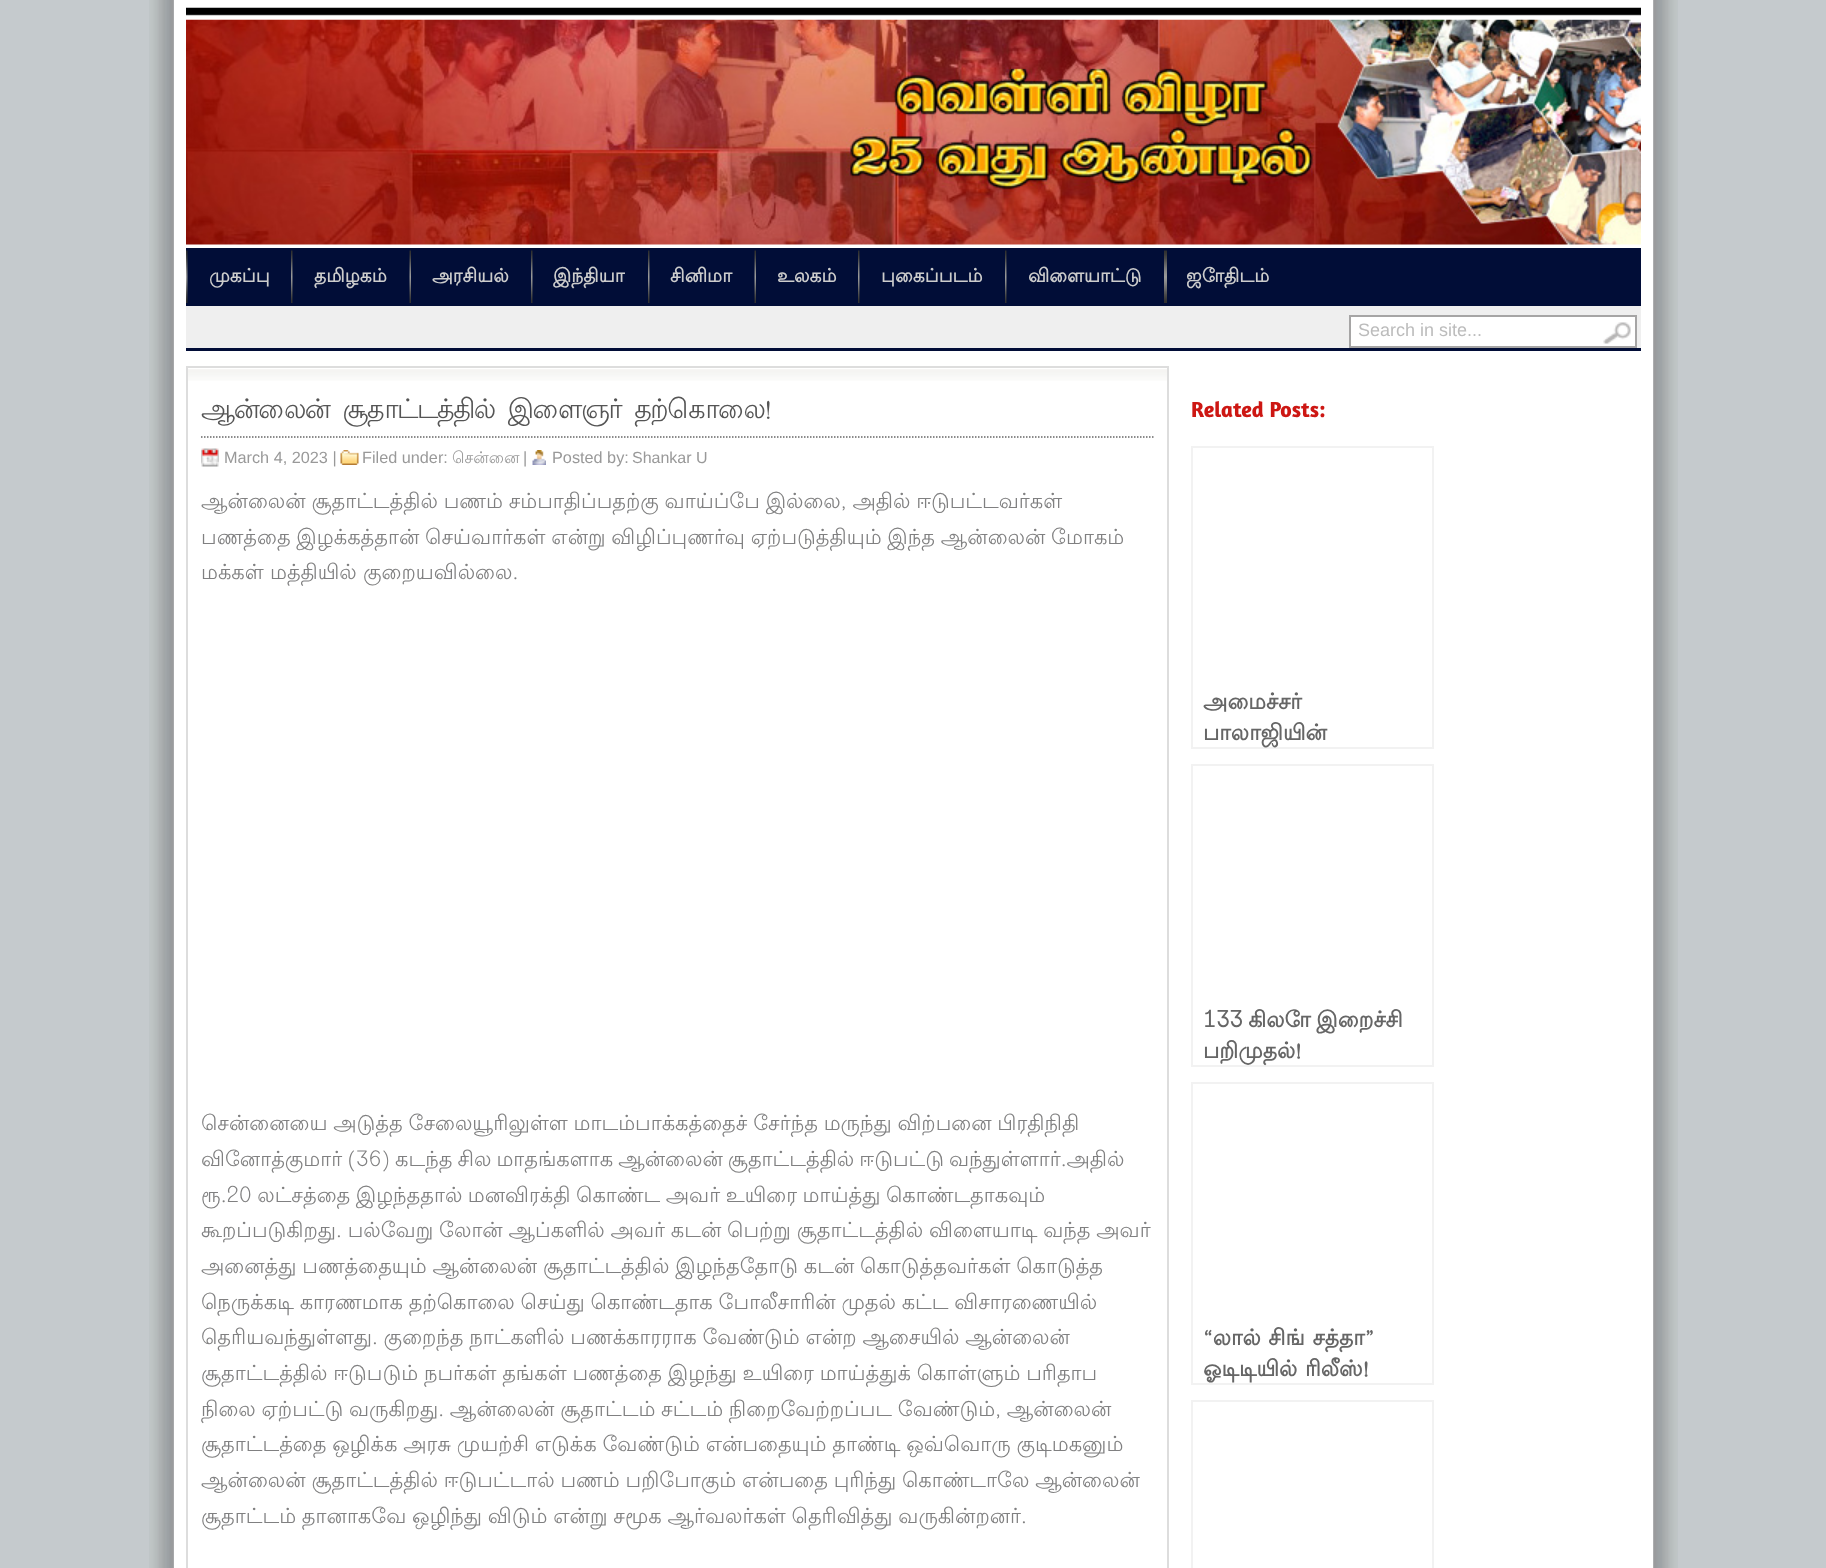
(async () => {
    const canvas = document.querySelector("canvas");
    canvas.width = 1826;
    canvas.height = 1568;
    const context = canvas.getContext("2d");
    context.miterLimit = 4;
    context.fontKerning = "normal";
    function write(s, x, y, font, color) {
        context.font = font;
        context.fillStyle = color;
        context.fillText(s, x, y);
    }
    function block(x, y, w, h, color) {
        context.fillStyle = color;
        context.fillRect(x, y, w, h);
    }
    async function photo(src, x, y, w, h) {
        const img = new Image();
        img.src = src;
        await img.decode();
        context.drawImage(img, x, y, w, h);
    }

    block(0, 0, 1826, 1568, "rgb(197, 202, 205)");
    await photo("media/1.png", 149, 0, 1529, 1568);
    block(174, 0, 1479, 1568, "rgb(255, 255, 255)");
    await photo("media/3.png", 186, 19, 1455, 226);
    await photo("media/2.png", 186, 7, 1455, 13);
    block(186, 248, 1455, 58, "rgb(1, 13, 55)");
    await photo("media/4.png", 186, 250, 2, 53);
    write("முகப்பு", 209, 282, "bold 18.75px Lohit Tamil", "rgb(204, 204, 204)");
    await photo("media/4.png", 291, 250, 2, 53);
    write("தமிழகம்", 314, 282, "bold 18.75px Lohit Tamil", "rgb(204, 204, 204)");
    await photo("media/5.png", 409, 250, 2, 53);
    write("அரசியல்", 432, 282, "bold 18.75px Lohit Tamil", "rgb(204, 204, 204)");
    await photo("media/4.png", 531, 250, 2, 53);
    write("இந்தியா", 553, 282, "bold 18.75px Lohit Tamil", "rgb(204, 204, 204)");
    await photo("media/4.png", 648, 250, 2, 53);
    write("சினிமா", 670, 282, "bold 18.75px Lohit Tamil", "rgb(204, 204, 204)");
    await photo("media/5.png", 754, 250, 2, 53);
    write("உலகம்", 777, 282, "bold 18.75px Lohit Tamil", "rgb(204, 204, 204)");
    await photo("media/4.png", 858, 250, 2, 53);
    write("புகைப்படம்", 881, 282, "bold 18.75px Lohit Tamil", "rgb(204, 204, 204)");
    await photo("media/4.png", 1005, 250, 2, 53);
    write("விளையாட்டு", 1028, 282, "bold 18.75px Lohit Tamil", "rgb(204, 204, 204)");
    await photo("media/6.png", 1164, 250, 3, 53);
    write("ஜோதிடம்", 1186, 282, "bold 18.75px Lohit Tamil", "rgb(204, 204, 204)");
    block(186, 306, 1455, 42, "rgb(239, 239, 239)");
    block(186, 348, 1455, 3, "rgb(1, 13, 55)");
    context.fillStyle = "rgb(255, 255, 255)";
    context.beginPath();
    context.rect(1350, 316, 286, 31);
    context.fill();
    context.strokeStyle = "rgb(166, 165, 165)";
    context.lineWidth = 2;
    context.stroke();
    write("Search in site...", 1358, 336, "18px Liberation Sans", "rgb(188, 188, 188)");
    await photo("media/7.png", 1603, 322, 28, 22);
    await photo("media/8.png", 188, 369, 979, 12);
    context.strokeStyle = "rgb(221, 221, 221)";
    context.strokeRect(187, 367, 981, 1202);
    context.letterSpacing = "-1.5px";
    context.wordSpacing = "6.5px";
    write("ஆன்லைன் சூதாட்டத்தில் இளைஞர் தற்கொலை!", 201, 418, "27px Lohit Tamil", "rgb(85, 85, 85)");
    context.beginPath();
    context.moveTo(201, 437);
    context.lineTo(1153.5, 437);
    context.strokeStyle = "rgb(102, 102, 102)";
    context.lineWidth = 1.5;
    context.setLineDash([1.5, 1.5]);
    context.stroke();
    await photo("media/9.png", 201, 448, 18, 19);
    context.letterSpacing = "0px";
    context.wordSpacing = "0px";
    write("March 4, 2023 |", 224, 463, "16.25px Liberation Sans", "rgb(153, 153, 153)");
    await photo("media/10.png", 340, 450, 19, 15);
    write("Filed under:", 362, 463, "16.25px Liberation Sans", "rgb(153, 153, 153)");
    write("சென்னை", 452, 463, "16px Lohit Tamil", "rgb(153, 153, 153)");
    write("|", 523, 463, "16.25px Liberation Sans", "rgb(153, 153, 153)");
    await photo("media/11.png", 532, 450, 14, 15);
    write("Posted by:", 552, 463, "16.25px Liberation Sans", "rgb(153, 153, 153)");
    write("Shankar U", 632, 463, "16px Liberation Sans", "rgb(153, 153, 153)");
    context.wordSpacing = "-0.5px";
    write("ஆன்லைன் சூதாட்டத்தில் பணம் சம்பாதிப்பதற்கு வாய்ப்பே இல்லை, அதில் ஈடுபட்டவர்கள்", 201, 508, "21px Lohit Tamil", "rgb(128, 128, 129)");
    write("பணத்தை இழக்கத்தான் செய்வார்கள் என்று விழிப்புணர்வு ஏற்படுத்தியும் இந்த ஆன்லைன் மோகம்", 201, 544, "21px Lohit Tamil", "rgb(128, 128, 129)");
    context.wordSpacing = "0px";
    write("மக்கள் மத்தியில் குறையவில்லை.", 201, 579, "21px Lohit Tamil", "rgb(128, 128, 129)");
    context.wordSpacing = "-0.5px";
    write("சென்னையை அடுத்த சேலையூரிலுள்ள மாடம்பாக்கத்தைச் சேர்ந்த மருந்து விற்பனை பிரதிநிதி", 201, 1130, "21px Lohit Tamil", "rgb(128, 128, 129)");
    context.wordSpacing = "-1.25px";
    write("வினோத்குமார் (36) கடந்த சில மாதங்களாக ஆன்லைன் சூதாட்டத்தில் ஈடுபட்டு வந்துள்ளார்.அதில்", 201, 1166, "21px Lohit Tamil", "rgb(128, 128, 129)");
    context.wordSpacing = "-0.75px";
    write("ரூ.20 லட்சத்தை இழந்ததால் மனவிரக்தி கொண்ட அவர் உயிரை மாய்த்து கொண்டதாகவும்", 201, 1202, "21px Lohit Tamil", "rgb(128, 128, 129)");
    context.wordSpacing = "-0.5px";
    write("கூறப்படுகிறது. பல்வேறு லோன் ஆப்களில் அவர் கடன் பெற்று சூதாட்டத்தில் விளையாடி வந்த அவர்", 201, 1237, "21px Lohit Tamil", "rgb(128, 128, 129)");
    write("அனைத்து பணத்தையும் ஆன்லைன் சூதாட்டத்தில் இழந்ததோடு கடன் கொடுத்தவர்கள் கொடுத்த", 201, 1273, "21px Lohit Tamil", "rgb(128, 128, 129)");
    write("நெருக்கடி காரணமாக தற்கொலை செய்து கொண்டதாக போலீசாரின் முதல் கட்ட விசாரணையில்", 201, 1309, "21px Lohit Tamil", "rgb(128, 128, 129)");
    write("தெரியவந்துள்ளது. குறைந்த நாட்களில் பணக்காரராக வேண்டும் என்ற ஆசையில் ஆன்லைன்", 201, 1344, "21px Lohit Tamil", "rgb(128, 128, 129)");
    write("சூதாட்டத்தில் ஈடுபடும் நபர்கள் தங்கள் பணத்தை இழந்து உயிரை மாய்த்துக் கொள்ளும் பரிதாப", 201, 1380, "21px Lohit Tamil", "rgb(128, 128, 129)");
    write("நிலை ஏற்பட்டு வருகிறது. ஆன்லைன் சூதாட்டம் சட்டம் நிறைவேற்றப்பட வேண்டும், ஆன்லைன்", 201, 1416, "21px Lohit Tamil", "rgb(128, 128, 129)");
    write("சூதாட்டத்தை ஒழிக்க அரசு முயற்சி எடுக்க வேண்டும் என்பதையும் தாண்டி ஒவ்வொரு குடிமகனும்", 201, 1451, "21px Lohit Tamil", "rgb(128, 128, 129)");
    write("ஆன்லைன் சூதாட்டத்தில் ஈடுபட்டால் பணம் பறிபோகும் என்பதை புரிந்து கொண்டாலே ஆன்லைன்", 201, 1487, "21px Lohit Tamil", "rgb(128, 128, 129)");
    write("சூதாட்டம் தானாகவே ஒழிந்து விடும் என்று சமூக ஆர்வலர்கள் தெரிவித்து வருகின்றனர்.", 201, 1523, "21px Lohit Tamil", "rgb(128, 128, 129)");
    context.wordSpacing = "0px";
    write("Related Posts:", 1191, 417, "bold 22px Amaranth", "rgb(205, 23, 19)");
    context.strokeStyle = "rgb(242, 242, 242)";
    context.lineWidth = 2;
    context.setLineDash([]);
    context.strokeRect(1192, 447, 241, 301);
    write("அமைச்சர்", 1203, 709, "bold 22px Lohit Tamil", "rgb(102, 102, 102)");
    write("பாலாஜியின்", 1203, 740, "bold 22px Lohit Tamil", "rgb(102, 102, 102)");
    context.strokeRect(1192, 765, 241, 301);
    context.wordSpacing = "-1px";
    write("133 கிலோ இறைச்சி", 1203, 1027, "bold 22px Lohit Tamil", "rgb(102, 102, 102)");
    context.wordSpacing = "0px";
    write("பறிமுதல்!", 1203, 1058, "bold 22px Lohit Tamil", "rgb(102, 102, 102)");
    context.strokeRect(1192, 1083, 241, 301);
    context.wordSpacing = "1px";
    write("“லால் சிங் சத்தா”", 1203, 1345, "bold 22px Lohit Tamil", "rgb(102, 102, 102)");
    write("ஓடிடியில் ரிலீஸ்!", 1203, 1376, "bold 22px Lohit Tamil", "rgb(102, 102, 102)");
    context.strokeRect(1192, 1401, 241, 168);
})();
